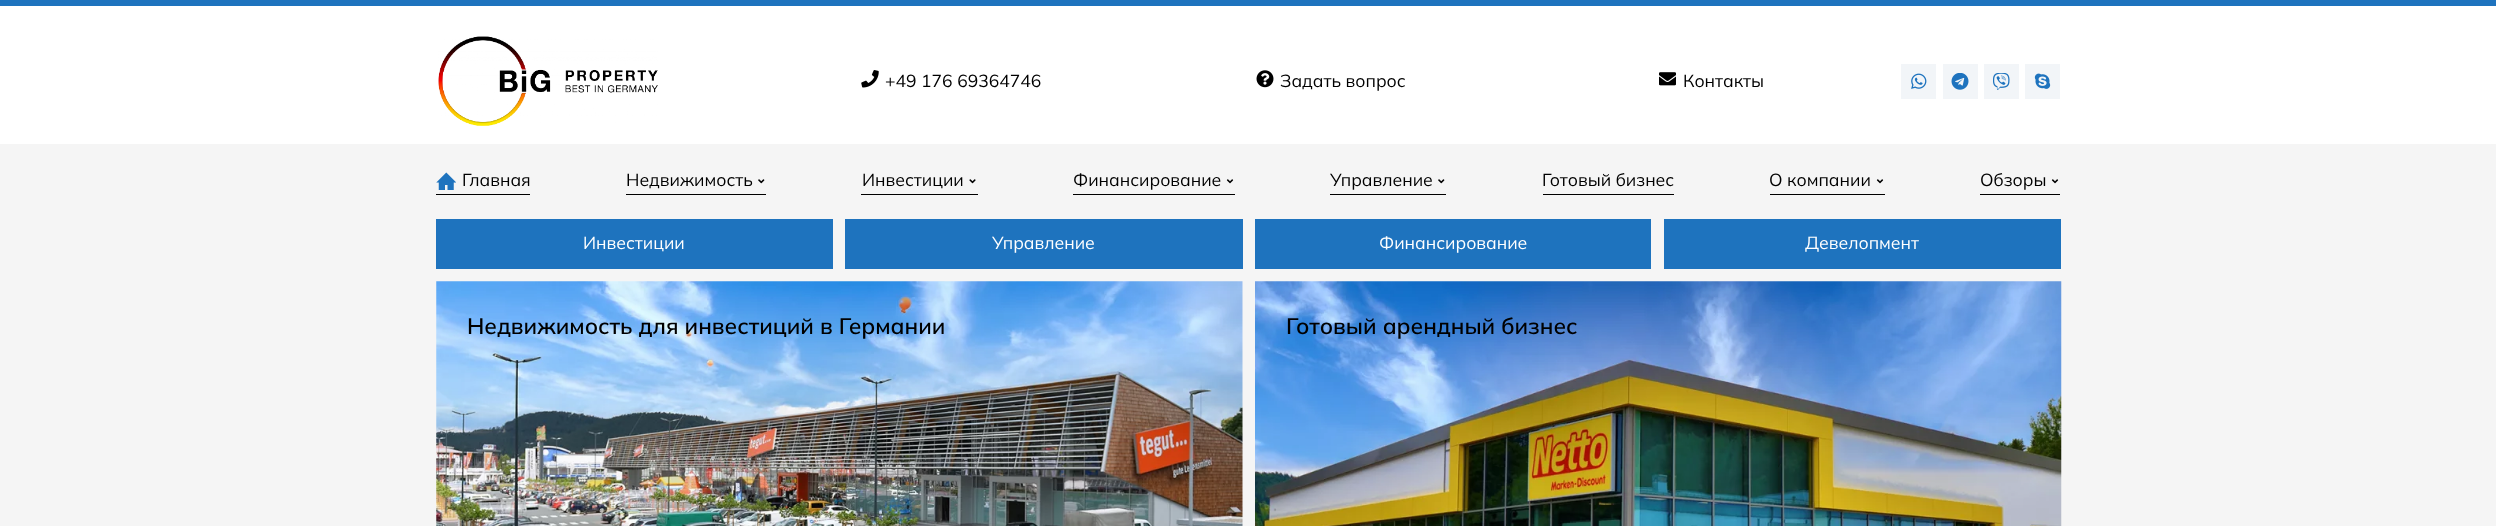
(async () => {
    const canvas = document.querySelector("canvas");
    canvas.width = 2496;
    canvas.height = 526;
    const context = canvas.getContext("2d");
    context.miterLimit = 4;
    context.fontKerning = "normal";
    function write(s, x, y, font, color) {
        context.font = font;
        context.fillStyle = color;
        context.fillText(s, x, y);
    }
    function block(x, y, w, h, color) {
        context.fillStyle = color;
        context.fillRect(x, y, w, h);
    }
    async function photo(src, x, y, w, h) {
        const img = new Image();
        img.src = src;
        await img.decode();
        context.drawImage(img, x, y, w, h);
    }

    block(0, 0, 2496, 526, "rgb(255, 255, 255)");
    block(0, 0, 2496, 6, "rgb(30, 115, 190)");
    await photo("media/1.png", 438, 36, 220, 90);
    await photo("media/2.png", 861, 70, 18, 18);
    write("+49 176 69364746", 885, 87, "17.5px Mulish", "rgb(0, 0, 0)");
    await photo("media/3.png", 1256, 70, 18, 18);
    write("Задать вопрос", 1280, 87, "17.5px Mulish", "rgb(0, 0, 0)");
    await photo("media/4.png", 1659, 72, 17, 14);
    write("Контакты", 1683, 87, "17.5px Mulish", "rgb(0, 0, 0)");
    block(1901, 64, 35, 35, "rgb(242, 245, 248)");
    await photo("media/5.png", 1911, 73, 16, 16);
    block(1943, 64, 35, 35, "rgb(242, 245, 248)");
    await photo("media/6.png", 1951, 73, 18, 17);
    block(1984, 64, 35, 35, "rgb(242, 245, 248)");
    await photo("media/7.png", 1993, 73, 17, 17);
    block(2025, 64, 35, 35, "rgb(242, 245, 248)");
    await photo("media/8.png", 2034, 73, 17, 16);
    block(0, 144, 2496, 382, "rgb(245, 245, 245)");
    block(436, 194, 94, 1, "rgb(0, 0, 0)");
    await photo("media/9.png", 436, 172, 20, 18);
    write("Главная", 462, 186, "17.5px Mulish", "rgb(0, 0, 0)");
    block(626, 194, 140, 1, "rgb(0, 0, 0)");
    write("Недвижимость", 626, 186, "17.5px Mulish", "rgb(0, 0, 0)");
    await photo("media/10.png", 758, 179, 7, 5);
    block(861, 194, 117, 1, "rgb(0, 0, 0)");
    write("Инвестиции", 862, 186, "17.5px Mulish", "rgb(0, 0, 0)");
    await photo("media/11.png", 969, 179, 7, 5);
    block(1073, 194, 162, 1, "rgb(0, 0, 0)");
    write("Финансирование", 1073, 186, "17.5px Mulish", "rgb(0, 0, 0)");
    await photo("media/12.png", 1226, 179, 8, 5);
    block(1330, 194, 116, 1, "rgb(0, 0, 0)");
    write("Управление", 1330, 186, "17.5px Mulish", "rgb(0, 0, 0)");
    await photo("media/10.png", 1438, 179, 7, 5);
    block(1543, 194, 131, 1, "rgb(0, 0, 0)");
    write("Готовый бизнес", 1542, 186, "17.5px Mulish", "rgb(0, 0, 0)");
    block(1770, 194, 115, 1, "rgb(0, 0, 0)");
    write("О компании", 1769, 186, "17.5px Mulish", "rgb(0, 0, 0)");
    await photo("media/12.png", 1876, 179, 8, 5);
    block(1980, 194, 80, 1, "rgb(0, 0, 0)");
    write("Обзоры", 1980, 186, "17.5px Mulish", "rgb(0, 0, 0)");
    await photo("media/12.png", 2051, 179, 8, 5);
    block(436, 219, 397, 50, "rgb(30, 115, 190)");
    write("Инвестиции", 583, 249, "17.5px Mulish", "rgb(255, 255, 255)");
    block(845, 219, 398, 50, "rgb(30, 115, 190)");
    write("Управление", 992, 249, "17.5px Mulish", "rgb(255, 255, 255)");
    block(1255, 219, 396, 50, "rgb(30, 115, 190)");
    write("Финансирование", 1379, 249, "17.5px Mulish", "rgb(255, 255, 255)");
    block(1664, 219, 397, 50, "rgb(30, 115, 190)");
    write("Девелопмент", 1805, 249, "17.5px Mulish", "rgb(255, 255, 255)");
    await photo("media/13.png", 436, 281, 807, 245);
    write("Недвижимость для инвестиций в Германии", 467, 334, "600 22.5px Mulish", "rgb(0, 0, 0)");
    await photo("media/14.png", 1255, 281, 807, 245);
    write("Готовый арендный бизнес", 1286, 334, "600 22.5px Mulish", "rgb(0, 0, 0)");
})();
